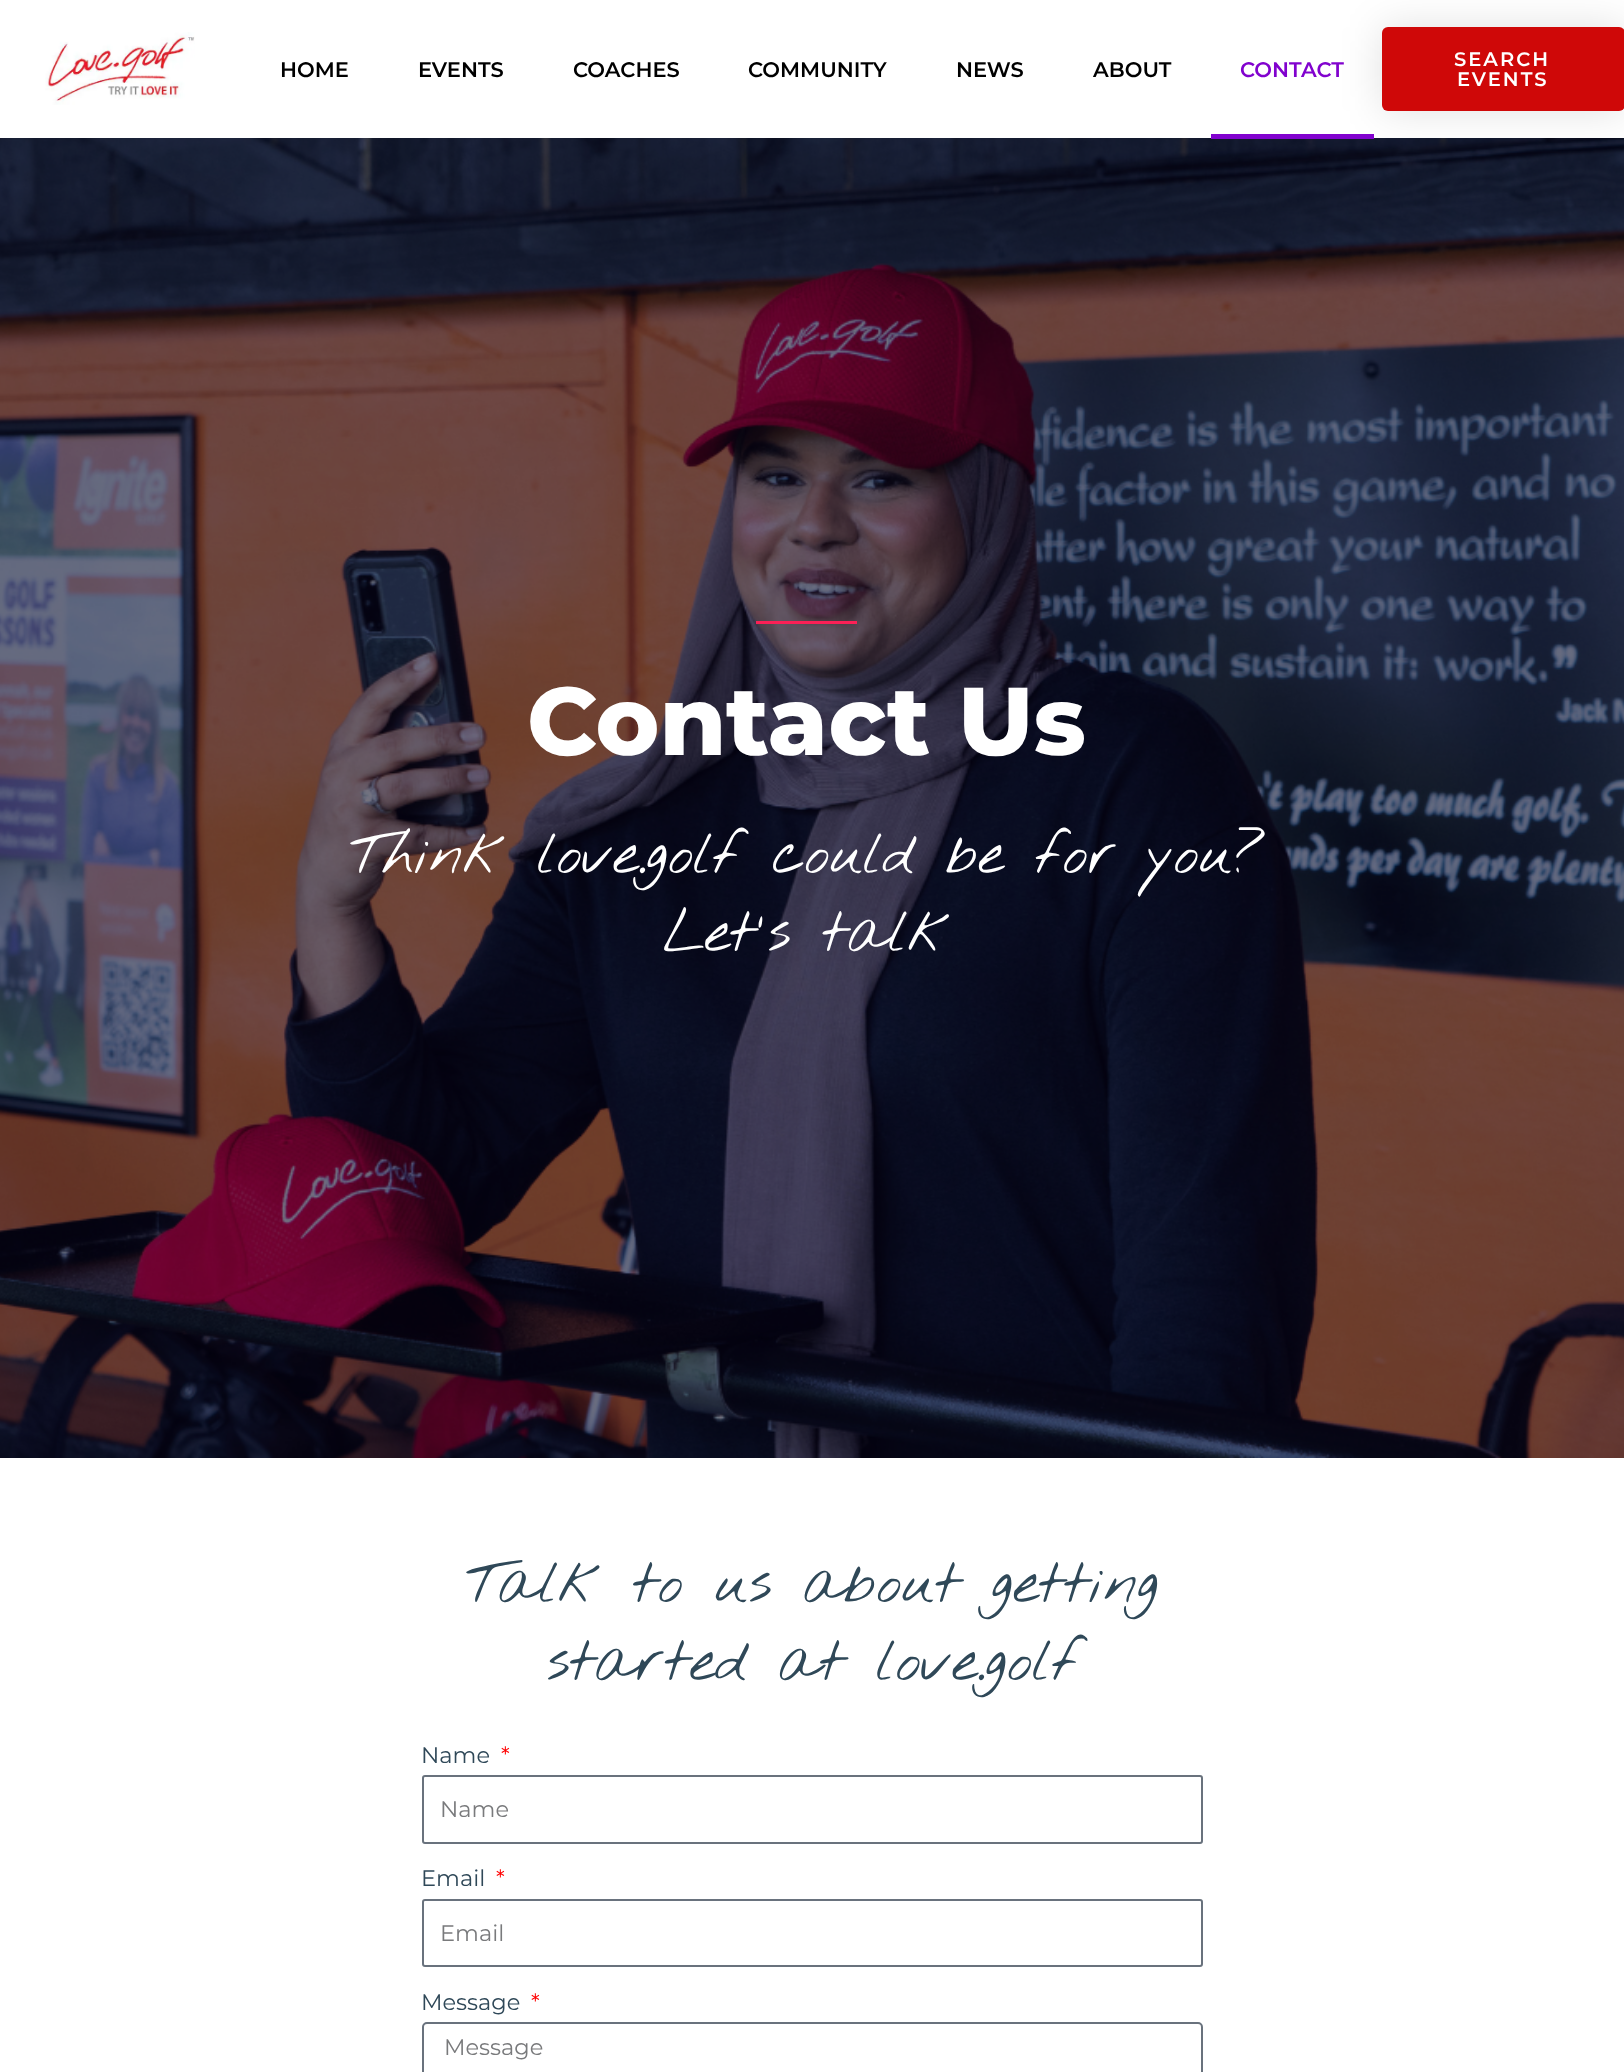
(async () => {
    const canvas = document.querySelector("canvas");
    canvas.width = 1624;
    canvas.height = 2072;
    const context = canvas.getContext("2d");
    context.miterLimit = 4;
    context.fontKerning = "normal";
    function write(s, x, y, font, color) {
        context.font = font;
        context.fillStyle = color;
        context.fillText(s, x, y);
    }
    function block(x, y, w, h, color) {
        context.fillStyle = color;
        context.fillRect(x, y, w, h);
    }
    function card(x, y, w, h, r, color) {
        context.fillStyle = color;
        context.beginPath();
        context.roundRect(x, y, w, h, r);
        context.fill();
    }
    async function photo(src, x, y, w, h) {
        const img = new Image();
        img.src = src;
        await img.decode();
        context.drawImage(img, x, y, w, h);
    }

    block(0, 0, 1624, 2072, "rgb(255, 255, 255)");
    await photo("media/1.png", 45, 32, 150, 73);
    write("HOME", 280, 77, "600 21px Montserrat", "rgb(0, 0, 0)");
    write("EVENTS", 418, 77, "600 21px Montserrat", "rgb(0, 0, 0)");
    write("COACHES", 573, 77, "600 21px Montserrat", "rgb(0, 0, 0)");
    write("COMMUNITY", 748, 77, "600 21px Montserrat", "rgb(0, 0, 0)");
    write("NEWS", 956, 77, "600 21px Montserrat", "rgb(0, 0, 0)");
    write("ABOUT", 1093, 77, "600 21px Montserrat", "rgb(0, 0, 0)");
    await photo("media/2.png", 0, 138, 1624, 1320);
    context.fillStyle = "rgba(0, 0, 0, 0.12)";
    context.filter = "blur(20px)";
    context.beginPath();
    context.roundRect(1382, 27, 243, 84, 6);
    context.fill();
    context.filter = "none";
    write("CONTACT", 1240, 77, "600 21px Montserrat", "rgb(129, 2, 206)");
    block(1211, 134, 163, 5, "rgb(129, 2, 206)");
    card(1382, 27, 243, 84, 6, "rgb(207, 8, 8)");
    context.letterSpacing = "2px";
    write("SEARCH", 1454, 66, "600 19.5px Montserrat", "rgb(255, 255, 255)");
    write("EVENTS", 1457, 86, "600 19.5px Montserrat", "rgb(255, 255, 255)");
    block(756, 621, 101, 3, "rgb(251, 32, 86)");
    context.letterSpacing = "0px";
    write("Contact Us", 527, 755, "800 96px Montserrat", "rgb(255, 255, 255)");
    write("Think love.golf could be for you?", 349, 873, "60px Nothing You Could Do", "rgb(255, 255, 255)");
    write("Let's talk", 663, 951, "60px Nothing You Could Do", "rgb(255, 255, 255)");
    write("Talk to us about getting", 465, 1602, "60px Nothing You Could Do", "rgb(47, 72, 88)");
    write("started at love.golf", 546, 1680, "60px Nothing You Could Do", "rgb(47, 72, 88)");
    write("Name", 421, 1763, "22.5px Montserrat", "rgb(47, 72, 88)");
    write("*", 501, 1763, "22.5px Montserrat", "rgb(255, 0, 0)");
    context.beginPath();
    context.roundRect(423, 1776, 779, 67, 2);
    context.strokeStyle = "rgb(105, 114, 125)";
    context.lineWidth = 2;
    context.stroke();
    write("Name", 440, 1817, "22.5px Montserrat", "rgb(121, 122, 124)");
    write("Email", 421, 1886, "22.5px Montserrat", "rgb(47, 72, 88)");
    write("*", 496, 1886, "22.5px Montserrat", "rgb(255, 0, 0)");
    context.beginPath();
    context.roundRect(423, 1900, 779, 66, 2);
    context.stroke();
    write("Email", 440, 1941, "22.5px Montserrat", "rgb(121, 122, 124)");
    write("Message", 421, 2010, "22.5px Montserrat", "rgb(47, 72, 88)");
    write("*", 531, 2010, "22.5px Montserrat", "rgb(255, 0, 0)");
    context.beginPath();
    context.roundRect(423, 2023, 779, 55, 4);
    context.stroke();
    write("Message", 444, 2055, "22.5px Montserrat", "rgb(121, 122, 124)");
})();
